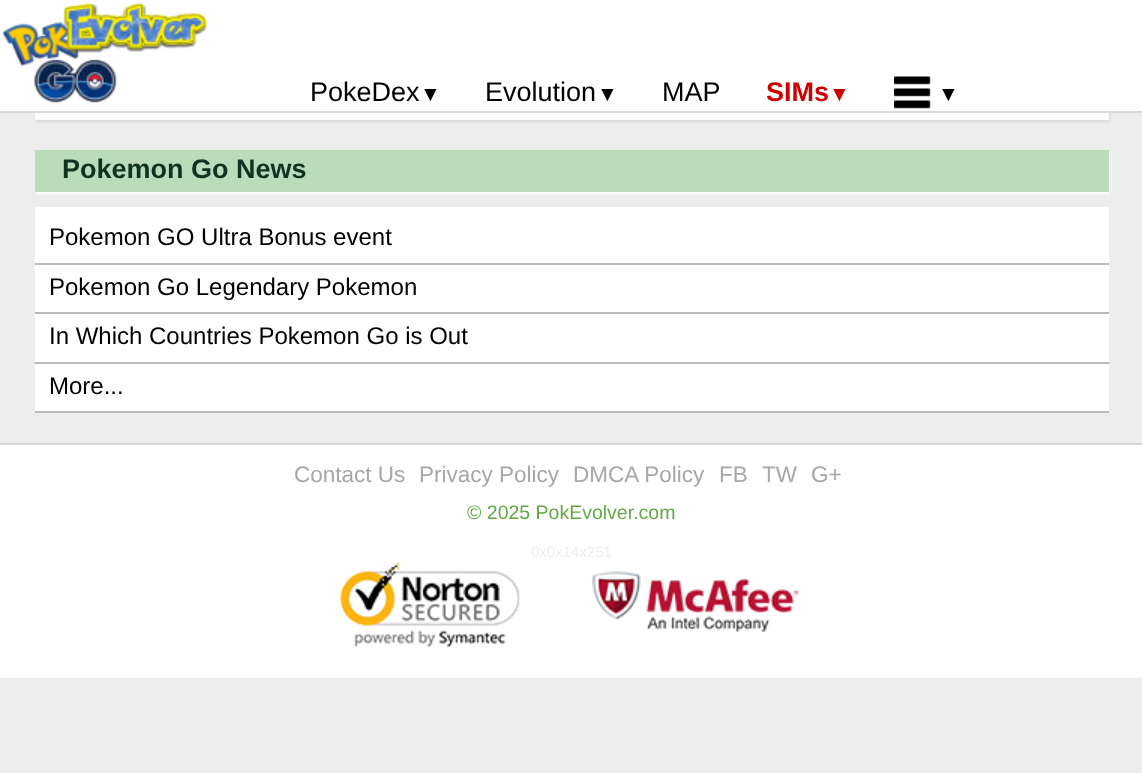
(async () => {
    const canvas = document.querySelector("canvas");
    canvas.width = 1142;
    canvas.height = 773;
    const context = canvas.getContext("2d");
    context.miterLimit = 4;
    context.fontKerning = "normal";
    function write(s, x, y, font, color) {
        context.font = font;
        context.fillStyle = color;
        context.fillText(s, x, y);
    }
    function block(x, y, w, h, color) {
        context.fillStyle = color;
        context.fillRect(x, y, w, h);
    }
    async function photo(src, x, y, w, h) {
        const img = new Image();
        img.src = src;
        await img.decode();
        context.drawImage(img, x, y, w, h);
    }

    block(0, 0, 1142, 773, "rgb(237, 237, 237)");
    context.fillStyle = "rgb(216, 216, 216)";
    context.filter = "blur(1.5px)";
    context.beginPath();
    context.rect(36, 27, 1074, 95);
    context.fill();
    context.filter = "none";
    block(0, 0, 1142, 111, "rgb(255, 255, 255)");
    block(0, 111, 1142, 2, "rgb(217, 216, 216)");
    await photo("media/1.png", 2, 2, 206, 101);
    write("PokeDex", 310, 101, "27px Liberation Sans", "rgb(0, 0, 0)");
    write("▼", 420, 101, "21px Liberation Sans", "rgb(0, 0, 0)");
    write("Evolution", 485, 101, "27px Liberation Sans", "rgb(0, 0, 0)");
    write("▼", 597, 101, "21px Liberation Sans", "rgb(0, 0, 0)");
    write("MAP", 662, 101, "27px Liberation Sans", "rgb(0, 0, 0)");
    write("SIMs", 766, 101, "bold 27px Liberation Sans", "rgb(204, 0, 0)");
    write("▼", 829, 101, "bold 21px Liberation Sans", "rgb(204, 0, 0)");
    await photo("media/2.png", 894, 76, 37, 33);
    write("▼", 938, 101, "21px Liberation Sans", "rgb(0, 0, 0)");
    block(35, 113, 1074, 7, "rgb(255, 255, 255)");
    context.filter = "blur(1.5px)";
    context.beginPath();
    context.rect(36, 152, 1074, 42);
    context.fill();
    context.filter = "none";
    block(35, 150, 1074, 42, "rgb(187, 219, 187)");
    write("Pokemon Go News", 62, 178, "bold 27px Liberation Sans", "rgb(17, 51, 34)");
    block(35, 207, 1074, 204, "rgb(255, 255, 255)");
    block(35, 263, 1074, 2, "rgb(187, 187, 187)");
    write("Pokemon GO Ultra Bonus event", 49, 245, "24px Liberation Sans", "rgb(0, 0, 0)");
    block(35, 312, 1074, 2, "rgb(187, 187, 187)");
    write("Pokemon Go Legendary Pokemon", 49, 295, "24px Liberation Sans", "rgb(0, 0, 0)");
    block(35, 362, 1074, 2, "rgb(187, 187, 187)");
    write("In Which Countries Pokemon Go is Out", 49, 344, "24px Liberation Sans", "rgb(0, 0, 0)");
    block(35, 411, 1074, 2, "rgb(187, 187, 187)");
    write("More...", 49, 394, "24px Liberation Sans", "rgb(0, 0, 0)");
    block(0, 445, 1142, 233, "rgb(255, 255, 255)");
    block(0, 443, 1142, 2, "rgb(217, 216, 216)");
    write("Contact Us", 294, 482, "22.5px Liberation Sans", "rgb(167, 167, 167)");
    write("Privacy Policy", 419, 482, "22.5px Liberation Sans", "rgb(167, 167, 167)");
    write("DMCA Policy", 573, 482, "22.5px Liberation Sans", "rgb(167, 167, 167)");
    write("FB", 719, 482, "22.5px Liberation Sans", "rgb(167, 167, 167)");
    write("TW", 762, 482, "22.5px Liberation Sans", "rgb(167, 167, 167)");
    write("G+", 811, 482, "22.5px Liberation Sans", "rgb(167, 167, 167)");
    write("© 2025 PokEvolver.com", 467, 519, "19.5px Liberation Sans", "rgb(98, 169, 69)");
    write("0x0x14x251", 531, 557, "15px Liberation Sans", "rgb(238, 238, 238)");
    await photo("media/3.png", 340, 562, 180, 85);
    await photo("media/4.png", 592, 571, 208, 61);
})();
